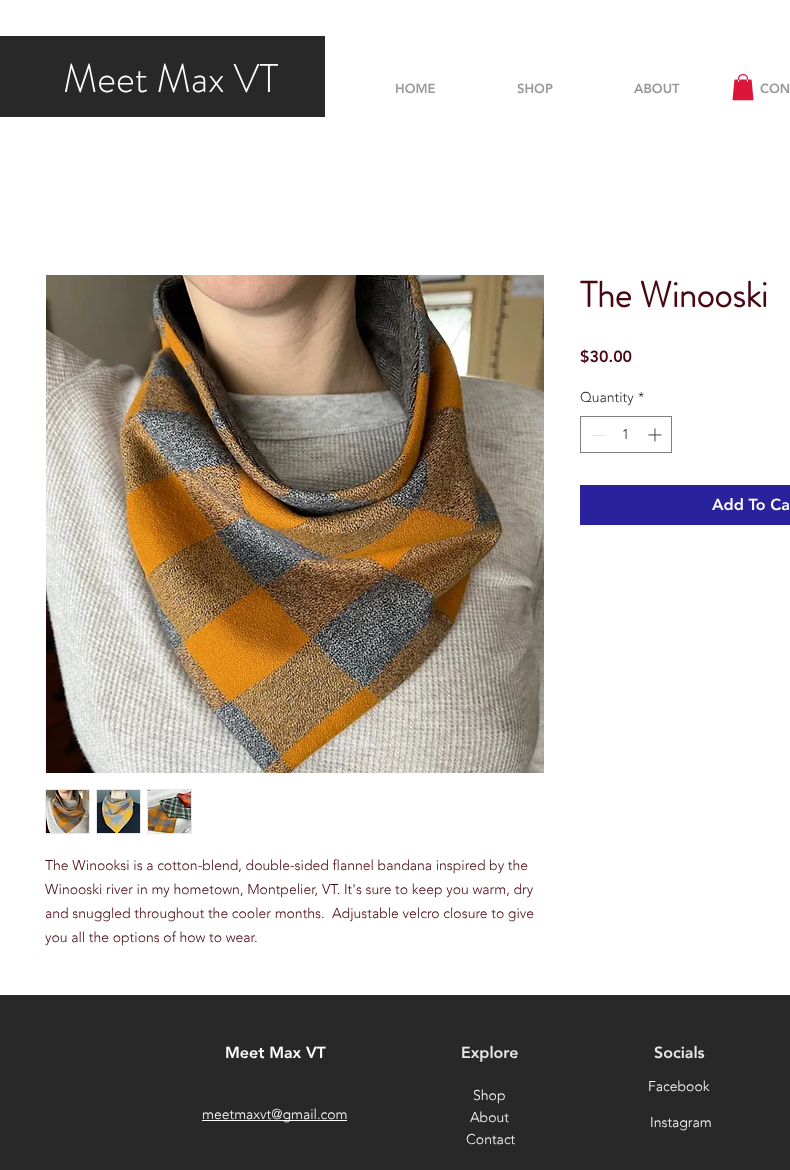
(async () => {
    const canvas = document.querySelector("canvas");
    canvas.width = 790;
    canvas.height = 1170;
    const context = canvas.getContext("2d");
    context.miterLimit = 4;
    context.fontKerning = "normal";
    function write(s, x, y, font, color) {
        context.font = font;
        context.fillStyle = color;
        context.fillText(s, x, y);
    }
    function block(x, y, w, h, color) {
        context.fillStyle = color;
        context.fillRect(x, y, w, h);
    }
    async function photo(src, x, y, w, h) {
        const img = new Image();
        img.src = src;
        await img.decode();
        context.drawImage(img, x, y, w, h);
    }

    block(0, 0, 790, 1170, "rgb(255, 255, 255)");
    block(0, 36, 325, 81, "rgb(40, 40, 40)");
    write("Meet Max VT", 63, 92, "300 40px 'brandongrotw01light'", "rgb(255, 255, 255)");
    write("HOME", 395, 93, "900 13px 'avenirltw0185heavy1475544'", "rgb(153, 153, 153)");
    write("SHOP", 517, 93, "900 13px 'avenirltw0185heavy1475544'", "rgb(153, 153, 153)");
    write("ABOUT", 634, 93, "900 13px 'avenirltw0185heavy1475544'", "rgb(153, 153, 153)");
    write("CON", 760, 93, "900 13px 'avenirltw0185heavy1475544'", "rgb(153, 153, 153)");
    await photo("media/1.png", 732, 74, 22, 27);
    write("The Winooski", 580, 307, "bold 36px 'brandongrotw01light'", "rgb(73, 7, 19)");
    write("$30.00", 580, 362, "900 16px 'avenirltw0185heavy1475544'", "rgb(73, 7, 19)");
    write("Quantity", 580, 402, "300 14px 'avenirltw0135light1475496'", "rgb(40, 40, 40)");
    write("*", 638, 402, "300 14px 'avenirltw0135light1475496'", "rgb(40, 40, 40)");
    context.strokeStyle = "rgb(126, 126, 126)";
    context.strokeRect(580.5, 416.5, 91, 36);
    block(592, 435, 13, 1, "rgb(227, 227, 227)");
    write("1", 622, 439, "300 14px 'avenirltw0135light1475496'", "rgb(40, 40, 40)");
    await photo("media/2.png", 648, 428, 14, 14);
    block(580, 485, 210, 40, "rgb(42, 34, 156)");
    write("Add To Ca", 712, 510, "900 16px 'avenirltw0185heavy1475544'", "rgb(255, 255, 255)");
    await photo("media/3.png", 46, 275, 498, 498);
    block(45, 789, 45, 45, "rgb(232, 230, 230)");
    await photo("media/4.png", 46, 790, 43, 43);
    block(96, 789, 45, 45, "rgb(232, 230, 230)");
    await photo("media/5.png", 97, 790, 43, 43);
    block(147, 789, 45, 45, "rgb(232, 230, 230)");
    await photo("media/6.png", 148, 790, 43, 43);
    write("The Winooksi is a cotton-blend, double-sided flannel bandana inspired by the", 45, 870, "300 14px 'avenirltw0135light1475496'", "rgb(73, 7, 19)");
    write("Winooski river in my hometown, Montpelier, VT. It's sure to keep you warm, dry", 45, 894, "300 14px 'avenirltw0135light1475496'", "rgb(73, 7, 19)");
    write("and snuggled throughout the cooler months.  Adjustable velcro closure to give", 45, 918, "300 14px 'avenirltw0135light1475496'", "rgb(73, 7, 19)");
    write("you all the options of how to wear.", 45, 942, "300 14px 'avenirltw0135light1475496'", "rgb(73, 7, 19)");
    block(0, 995, 790, 175, "rgb(40, 40, 40)");
    write("Meet Max VT", 225, 1058, "900 16px 'avenirltw0185heavy1475544'", "rgb(255, 255, 255)");
    write("Explore", 461, 1058, "900 16px 'avenirltw0185heavy1475544'", "rgb(232, 230, 230)");
    write("Socials", 654, 1058, "900 16px 'avenirltw0185heavy1475544'", "rgb(232, 230, 230)");
    write("Facebook", 648, 1091, "300 14px 'avenirltw0135light1475496'", "rgb(255, 255, 255)");
    write("Shop", 473, 1100, "300 14px 'avenirltw0135light1475496'", "rgb(255, 255, 255)");
    block(202, 1120, 145, 1, "rgb(255, 255, 255)");
    write("meetmaxvt@gmail.com", 202, 1119, "300 14px 'avenirltw0135light1475496'", "rgb(255, 255, 255)");
    write("About", 470, 1122, "300 14px 'avenirltw0135light1475496'", "rgb(255, 255, 255)");
    write("Instagram", 650, 1127, "300 14px 'avenirltw0135light1475496'", "rgb(255, 255, 255)");
    write("Contact", 466, 1144, "300 14px 'avenirltw0135light1475496'", "rgb(255, 255, 255)");
})();
